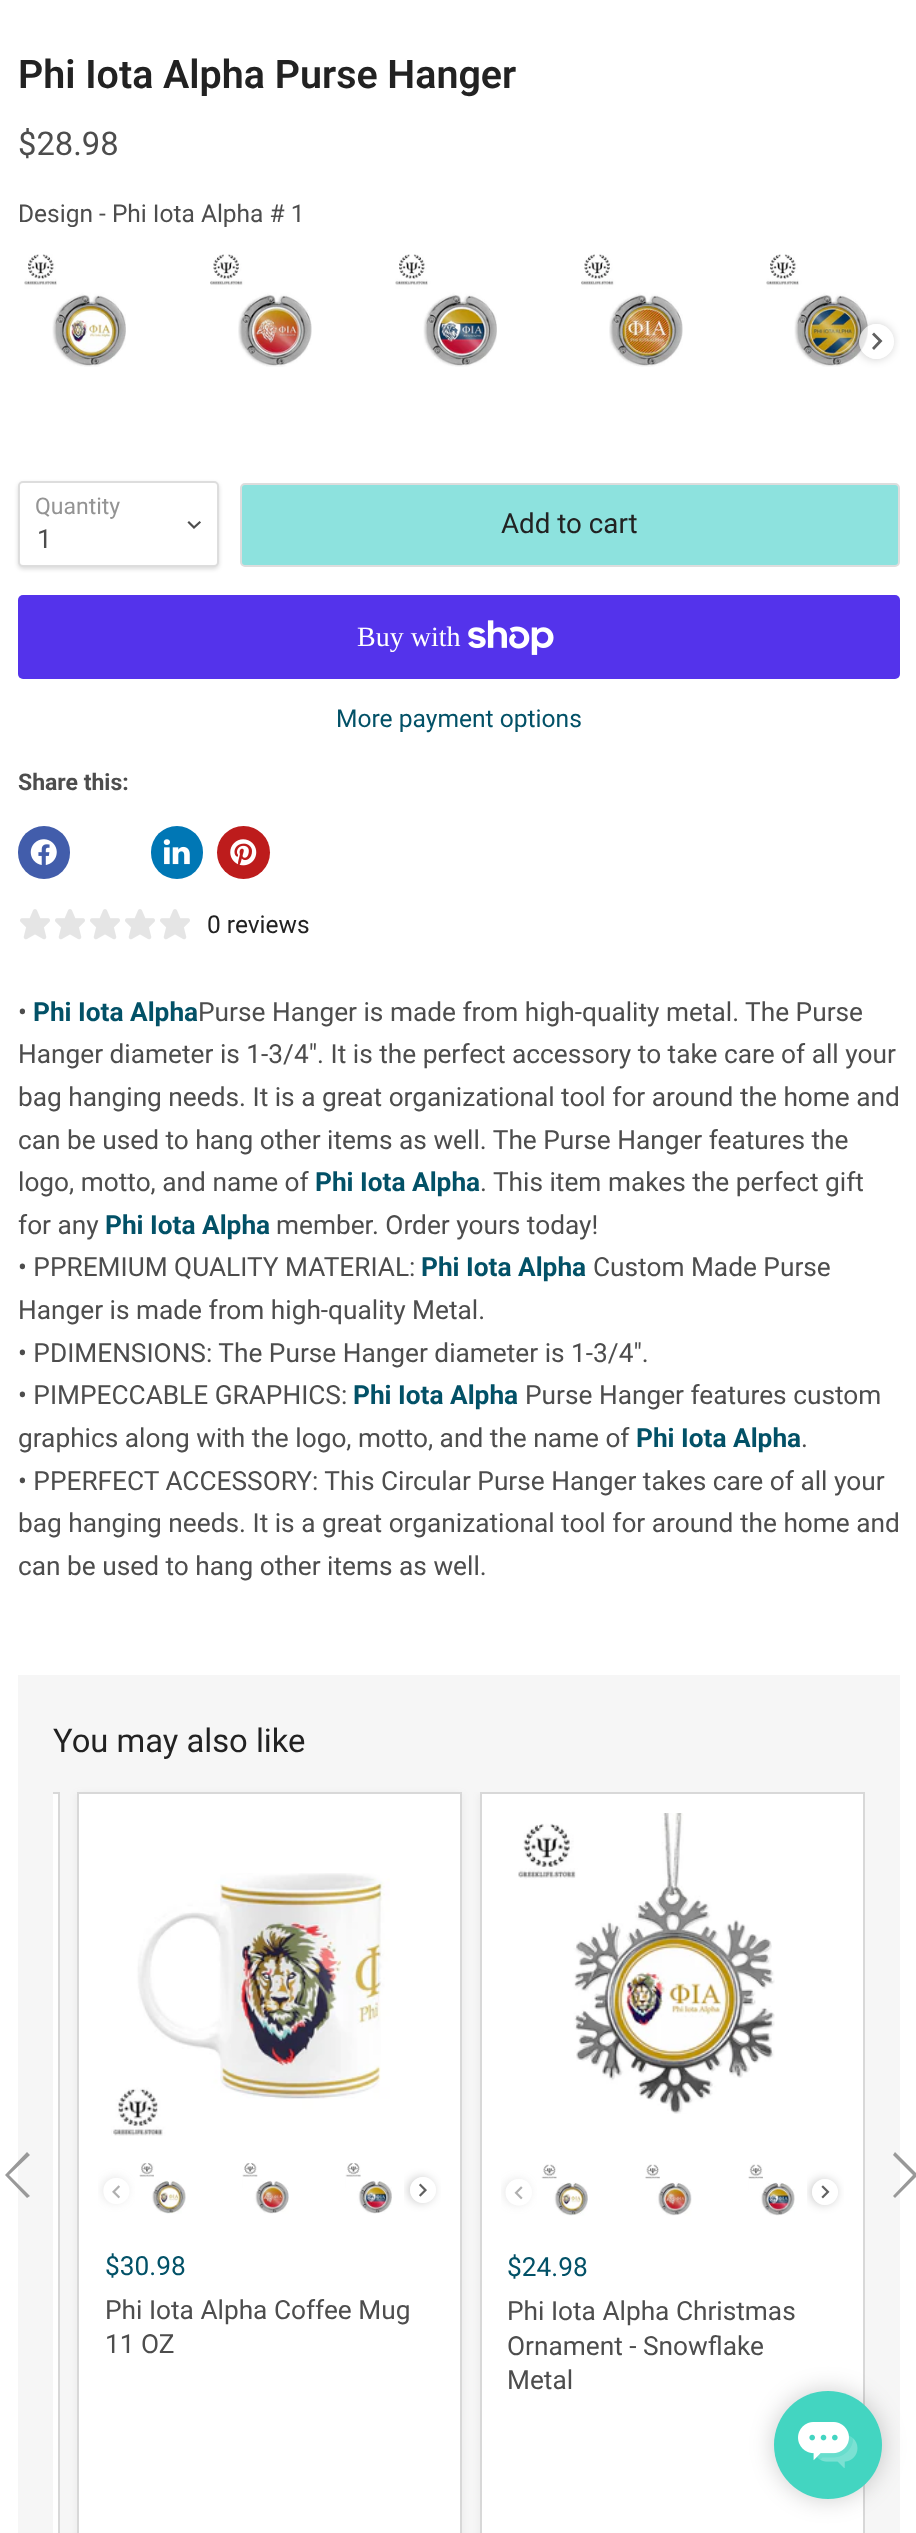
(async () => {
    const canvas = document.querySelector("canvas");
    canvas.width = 916;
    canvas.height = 2533;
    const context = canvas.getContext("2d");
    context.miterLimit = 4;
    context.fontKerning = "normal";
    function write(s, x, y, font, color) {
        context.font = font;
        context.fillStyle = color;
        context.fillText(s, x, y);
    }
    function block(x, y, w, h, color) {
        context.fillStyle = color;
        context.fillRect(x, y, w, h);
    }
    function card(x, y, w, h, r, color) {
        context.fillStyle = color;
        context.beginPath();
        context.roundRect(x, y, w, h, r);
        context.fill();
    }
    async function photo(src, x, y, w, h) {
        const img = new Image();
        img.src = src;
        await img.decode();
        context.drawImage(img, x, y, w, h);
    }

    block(0, 0, 916, 2533, "rgb(255, 255, 255)");
    write("Phi Iota Alpha Purse Hanger", 18, 88, "600 39.4px Roboto", "rgb(34, 34, 34)");
    write("$28.98", 18, 155, "32.75px Roboto", "rgb(77, 77, 77)");
    write("Design - Phi Iota Alpha # 1", 18, 222, "24.5px Roboto", "rgb(77, 77, 77)");
    await photo("media/1.png", 24, 254, 102, 113);
    await photo("media/2.png", 210, 254, 102, 113);
    await photo("media/3.png", 395, 254, 102, 113);
    await photo("media/4.png", 581, 254, 102, 113);
    await photo("media/5.png", 766, 254, 102, 113);
    context.save();
    context.beginPath();
    context.rect(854, 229, 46, 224);
    context.clip();
    context.beginPath();
    context.moveTo(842, 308);
    context.lineTo(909, 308);
    context.lineTo(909, 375);
    context.lineTo(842, 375);
    context.closePath();
    context.moveTo(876.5, 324);
    context.bezierCurveTo(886, 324, 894, 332, 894, 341.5);
    context.bezierCurveTo(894, 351, 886, 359, 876.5, 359);
    context.bezierCurveTo(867, 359, 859, 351, 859, 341.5);
    context.bezierCurveTo(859, 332, 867, 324, 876.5, 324);
    context.closePath();
    context.clip("evenodd");
    context.fillStyle = "rgba(0, 0, 0, 0.2)";
    context.filter = "blur(5px)";
    context.beginPath();
    context.roundRect(858, 324, 35, 35, 17.5);
    context.fill();
    context.filter = "none";
    context.restore();
    context.fillStyle = "rgba(255, 255, 255, 0.65)";
    context.beginPath();
    context.arc(876.5, 341.5, 17.5, 0, Math.PI * 2);
    context.fill();
    context.fillStyle = "rgb(96, 96, 96)";
    context.beginPath();
    context.moveTo(872, 348);
    context.lineTo(878.5, 341);
    context.lineTo(872, 334.5);
    context.lineTo(874, 332.5);
    context.lineTo(882.5, 341);
    context.lineTo(874, 350);
    context.closePath();
    context.fill();
    context.fillStyle = "rgba(0, 0, 0, 0.15)";
    context.filter = "blur(2px)";
    context.beginPath();
    context.roundRect(18, 483, 201, 86, 5);
    context.fill();
    context.filter = "none";
    context.fillStyle = "rgb(255, 255, 255)";
    context.beginPath();
    context.roundRect(19, 482, 199, 84, 4);
    context.fill();
    context.strokeStyle = "rgb(221, 221, 221)";
    context.lineWidth = 2;
    context.stroke();
    write("Quantity", 35, 514, "23px Roboto", "rgb(148, 148, 148)");
    context.beginPath();
    context.moveTo(194, 527.5);
    context.lineTo(199.5, 522.5);
    context.moveTo(194, 527.5);
    context.lineTo(189, 522.5);
    context.strokeStyle = "rgb(77, 77, 77)";
    context.lineWidth = 2.2;
    context.lineCap = "square";
    context.stroke();
    write("1", 37, 548, "26.25px Roboto", "rgb(77, 77, 77)");
    context.fillStyle = "rgb(141, 226, 222)";
    context.beginPath();
    context.roundRect(241, 484, 658, 82, 4);
    context.fill();
    context.strokeStyle = "rgb(221, 221, 221)";
    context.lineWidth = 2;
    context.stroke();
    write("Add to cart", 501, 533, "27.75px Roboto", "rgb(34, 34, 34)");
    card(18, 595, 882, 84, 5, "rgb(84, 51, 235)");
    write("Buy with", 357, 646, "28px Liberation Serif", "rgb(255, 255, 255)");
    await photo("media/6.png", 468, 620, 86, 35);
    write("More payment options", 336, 727, "24.6px Roboto", "rgb(2, 81, 103)");
    write("Share this:", 18, 790, "bold 23px Roboto", "rgb(77, 77, 77)");
    card(18, 826, 52, 53, 26, "rgb(66, 93, 171)");
    await photo("media/7.png", 30, 839, 27, 26);
    card(151, 826, 52, 53, 26, "rgb(0, 119, 181)");
    await photo("media/8.png", 163, 839, 27, 26);
    context.fillStyle = "rgb(189, 28, 28)";
    context.beginPath();
    context.arc(243.5, 852.5, 26.5, 0, Math.PI * 2);
    context.fill();
    await photo("media/9.png", 230, 839, 27, 27);
    await photo("media/10.png", 20, 909, 30, 31);
    await photo("media/10.png", 55, 909, 30, 31);
    await photo("media/10.png", 90, 909, 30, 31);
    await photo("media/10.png", 125, 909, 30, 31);
    await photo("media/10.png", 160, 909, 30, 31);
    write("0 reviews", 207, 933, "24.5px Roboto", "rgb(34, 34, 34)");
    write("•", 18, 1021, "26.25px Roboto", "rgb(77, 77, 77)");
    write("Phi Iota Alpha", 33, 1021, "bold 26.25px Roboto", "rgb(2, 81, 103)");
    write("Purse Hanger is made from high-quality metal. The Purse", 198, 1021, "26.25px Roboto", "rgb(77, 77, 77)");
    write("Hanger diameter is 1-3/4\". It is the perfect accessory to take care of all your", 18, 1063, "26.25px Roboto", "rgb(77, 77, 77)");
    write("bag hanging needs. It is a great organizational tool for around the home and", 18, 1106, "26.25px Roboto", "rgb(77, 77, 77)");
    write("can be used to hang other items as well. The Purse Hanger features the", 18, 1149, "26.25px Roboto", "rgb(77, 77, 77)");
    write("logo, motto, and name of", 18, 1191, "26.25px Roboto", "rgb(77, 77, 77)");
    write("Phi Iota Alpha", 315, 1191, "bold 26.25px Roboto", "rgb(2, 81, 103)");
    write(". This item makes the perfect gift", 480, 1191, "26.25px Roboto", "rgb(77, 77, 77)");
    write("for any", 18, 1234, "26.25px Roboto", "rgb(77, 77, 77)");
    write("Phi Iota Alpha", 105, 1234, "bold 26.25px Roboto", "rgb(2, 81, 103)");
    write("member. Order yours today!", 276, 1234, "26.25px Roboto", "rgb(77, 77, 77)");
    write("• PPREMIUM QUALITY MATERIAL:", 18, 1276, "26.25px Roboto", "rgb(77, 77, 77)");
    write("Phi Iota Alpha", 421, 1276, "bold 26.25px Roboto", "rgb(2, 81, 103)");
    write("Custom Made Purse", 593, 1276, "26.25px Roboto", "rgb(77, 77, 77)");
    write("Hanger is made from high-quality Metal.", 18, 1319, "26.25px Roboto", "rgb(77, 77, 77)");
    write("• PDIMENSIONS: The Purse Hanger diameter is 1-3/4\".", 18, 1362, "26.25px Roboto", "rgb(77, 77, 77)");
    write("• PIMPECCABLE GRAPHICS:", 18, 1404, "26.25px Roboto", "rgb(77, 77, 77)");
    write("Phi Iota Alpha", 353, 1404, "bold 26.25px Roboto", "rgb(2, 81, 103)");
    write("Purse Hanger features custom", 525, 1404, "26.25px Roboto", "rgb(77, 77, 77)");
    write("graphics along with the logo, motto, and the name of", 18, 1447, "26.25px Roboto", "rgb(77, 77, 77)");
    write("Phi Iota Alpha", 636, 1447, "bold 26.25px Roboto", "rgb(2, 81, 103)");
    write(".", 801, 1447, "26.25px Roboto", "rgb(77, 77, 77)");
    write("• PPERFECT ACCESSORY: This Circular Purse Hanger takes care of all your", 18, 1490, "26.25px Roboto", "rgb(77, 77, 77)");
    write("bag hanging needs. It is a great organizational tool for around the home and", 18, 1532, "26.25px Roboto", "rgb(77, 77, 77)");
    write("can be used to hang other items as well.", 18, 1575, "26.25px Roboto", "rgb(77, 77, 77)");
    block(18, 1675, 882, 858, "rgb(246, 246, 246)");
    write("You may also like", 53, 1752, "32.75px Roboto", "rgb(34, 34, 34)");
    block(53, 1792, 5, 741, "rgb(255, 255, 255)");
    context.save();
    context.beginPath();
    context.rect(53, 1792, 812, 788);
    context.clip();
    context.strokeStyle = "rgb(216, 216, 216)";
    context.strokeRect(-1, 1793, 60, 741);
    context.restore();
    context.fillStyle = "rgba(128, 128, 128, 0.11)";
    context.filter = "blur(3.5px)";
    context.beginPath();
    context.rect(77, 1794, 385, 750);
    context.fill();
    context.filter = "none";
    context.fillStyle = "rgb(255, 255, 255)";
    context.beginPath();
    context.rect(78, 1793, 383, 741);
    context.fill();
    context.strokeStyle = "rgb(216, 216, 216)";
    context.stroke();
    await photo("media/11.png", 111, 1873, 279, 263);
    await photo("media/13.png", 139, 2163, 47, 51);
    context.save();
    context.beginPath();
    context.rect(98, 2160, 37, 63);
    context.clip();
    context.beginPath();
    context.moveTo(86, 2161);
    context.lineTo(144, 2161);
    context.lineTo(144, 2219);
    context.lineTo(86, 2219);
    context.closePath();
    context.moveTo(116.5, 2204);
    context.bezierCurveTo(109, 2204, 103.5, 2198, 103.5, 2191);
    context.bezierCurveTo(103.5, 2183.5, 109, 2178, 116.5, 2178);
    context.bezierCurveTo(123.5, 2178, 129.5, 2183.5, 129.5, 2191);
    context.bezierCurveTo(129.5, 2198, 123.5, 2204, 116.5, 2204);
    context.closePath();
    context.clip("evenodd");
    context.fillStyle = "rgba(128, 128, 128, 0.2)";
    context.filter = "blur(5px)";
    context.beginPath();
    context.roundRect(102, 2177, 26, 26, 13);
    context.fill();
    context.filter = "none";
    context.restore();
    context.fillStyle = "rgba(255, 255, 255, 0.65)";
    context.beginPath();
    context.moveTo(116.5, 2204);
    context.bezierCurveTo(99, 2204, 99, 2178, 116.5, 2178);
    context.bezierCurveTo(133.5, 2178, 133.5, 2204, 116.5, 2204);
    context.closePath();
    context.fill();
    await photo("media/12.png", 112, 2185, 8, 14);
    await photo("media/14.png", 242, 2163, 47, 51);
    await photo("media/15.png", 345, 2163, 47, 51);
    context.save();
    context.beginPath();
    context.rect(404, 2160, 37, 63);
    context.clip();
    context.beginPath();
    context.moveTo(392, 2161);
    context.lineTo(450, 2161);
    context.lineTo(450, 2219);
    context.lineTo(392, 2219);
    context.closePath();
    context.moveTo(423, 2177);
    context.bezierCurveTo(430, 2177, 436, 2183, 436, 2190);
    context.bezierCurveTo(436, 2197, 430, 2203, 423, 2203);
    context.bezierCurveTo(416, 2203, 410, 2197, 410, 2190);
    context.bezierCurveTo(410, 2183, 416, 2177, 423, 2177);
    context.closePath();
    context.clip("evenodd");
    context.fillStyle = "rgba(0, 0, 0, 0.2)";
    context.filter = "blur(5px)";
    context.beginPath();
    context.roundRect(408, 2177, 26, 26, 13);
    context.fill();
    context.filter = "none";
    context.restore();
    context.beginPath();
    context.arc(423, 2190, 13, 0, Math.PI * 2);
    context.fill();
    await photo("media/16.png", 419, 2183, 8, 14);
    write("$30.98", 105, 2275, "26.25px Roboto", "rgb(2, 81, 103)");
    write("Phi Iota Alpha Coffee Mug", 105, 2319, "26.25px Roboto", "rgb(77, 77, 77)");
    write("11 OZ", 105, 2353, "26.25px Roboto", "rgb(77, 77, 77)");
    context.save();
    context.beginPath();
    context.rect(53, 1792, 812, 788);
    context.clip();
    context.fillStyle = "rgba(128, 128, 128, 0.11)";
    context.filter = "blur(3.5px)";
    context.beginPath();
    context.rect(480, 1794, 385, 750);
    context.fill();
    context.filter = "none";
    context.restore();
    context.fillStyle = "rgb(255, 255, 255)";
    context.beginPath();
    context.rect(481, 1793, 383, 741);
    context.fill();
    context.stroke();
    await photo("media/17.png", 518, 1813, 257, 301);
    await photo("media/19.png", 541, 2164, 47, 52);
    context.save();
    context.beginPath();
    context.rect(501, 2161, 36, 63);
    context.clip();
    context.beginPath();
    context.moveTo(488, 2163);
    context.lineTo(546, 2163);
    context.lineTo(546, 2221);
    context.lineTo(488, 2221);
    context.closePath();
    context.moveTo(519, 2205.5);
    context.bezierCurveTo(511.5, 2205.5, 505.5, 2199.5, 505.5, 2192.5);
    context.bezierCurveTo(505.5, 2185, 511.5, 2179, 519, 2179);
    context.bezierCurveTo(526, 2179, 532, 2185, 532, 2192.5);
    context.bezierCurveTo(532, 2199.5, 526, 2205.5, 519, 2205.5);
    context.closePath();
    context.clip("evenodd");
    context.fillStyle = "rgba(128, 128, 128, 0.2)";
    context.filter = "blur(5px)";
    context.beginPath();
    context.roundRect(504, 2179, 26, 26, 13);
    context.fill();
    context.filter = "none";
    context.restore();
    context.fillStyle = "rgba(255, 255, 255, 0.65)";
    context.beginPath();
    context.moveTo(519, 2205.5);
    context.bezierCurveTo(501.5, 2205.5, 501.5, 2179, 519, 2179);
    context.bezierCurveTo(536, 2179, 536, 2205.5, 519, 2205.5);
    context.closePath();
    context.fill();
    await photo("media/18.png", 514, 2186, 9, 14);
    await photo("media/20.png", 645, 2164, 47, 52);
    await photo("media/21.png", 748, 2164, 47, 52);
    context.save();
    context.beginPath();
    context.rect(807, 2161, 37, 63);
    context.clip();
    context.beginPath();
    context.moveTo(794, 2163);
    context.lineTo(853, 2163);
    context.lineTo(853, 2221);
    context.lineTo(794, 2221);
    context.closePath();
    context.moveTo(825, 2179);
    context.bezierCurveTo(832, 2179, 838, 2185, 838, 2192);
    context.bezierCurveTo(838, 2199, 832, 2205, 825, 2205);
    context.bezierCurveTo(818, 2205, 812, 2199, 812, 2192);
    context.bezierCurveTo(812, 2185, 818, 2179, 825, 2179);
    context.closePath();
    context.clip("evenodd");
    context.fillStyle = "rgba(0, 0, 0, 0.2)";
    context.filter = "blur(5px)";
    context.beginPath();
    context.roundRect(810, 2179, 27, 26, 13);
    context.fill();
    context.filter = "none";
    context.restore();
    context.beginPath();
    context.arc(825, 2192, 13, 0, Math.PI * 2);
    context.fill();
    await photo("media/22.png", 821, 2185, 9, 14);
    write("$24.98", 507, 2276, "26.25px Roboto", "rgb(2, 81, 103)");
    write("Phi Iota Alpha Christmas", 507, 2320, "26.25px Roboto", "rgb(77, 77, 77)");
    write("Ornament - Snowflake", 507, 2355, "26.25px Roboto", "rgb(77, 77, 77)");
    write("Metal", 507, 2389, "26.25px Roboto", "rgb(77, 77, 77)");
    context.fillStyle = "rgb(153, 153, 153)";
    context.beginPath();
    context.moveTo(5, 2175);
    context.lineTo(27, 2198);
    context.lineTo(30, 2196);
    context.lineTo(9, 2175);
    context.lineTo(30, 2155);
    context.lineTo(27, 2152);
    context.closePath();
    context.fill();
    context.beginPath();
    context.moveTo(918, 2175);
    context.lineTo(895, 2152);
    context.lineTo(893, 2155);
    context.lineTo(913, 2175);
    context.lineTo(893, 2196);
    context.lineTo(895, 2198);
    context.closePath();
    context.fill();
    context.fillStyle = "rgba(0, 0, 0, 0.2)";
    context.filter = "blur(12px)";
    context.beginPath();
    context.roundRect(774, 2391, 108, 108, 54);
    context.fill();
    context.filter = "none";
    context.fillStyle = "rgb(67, 213, 193)";
    context.beginPath();
    context.arc(828, 2445, 54, 0, Math.PI * 2);
    context.fill();
    await photo("media/23.png", 798, 2422, 60, 46);
})();
